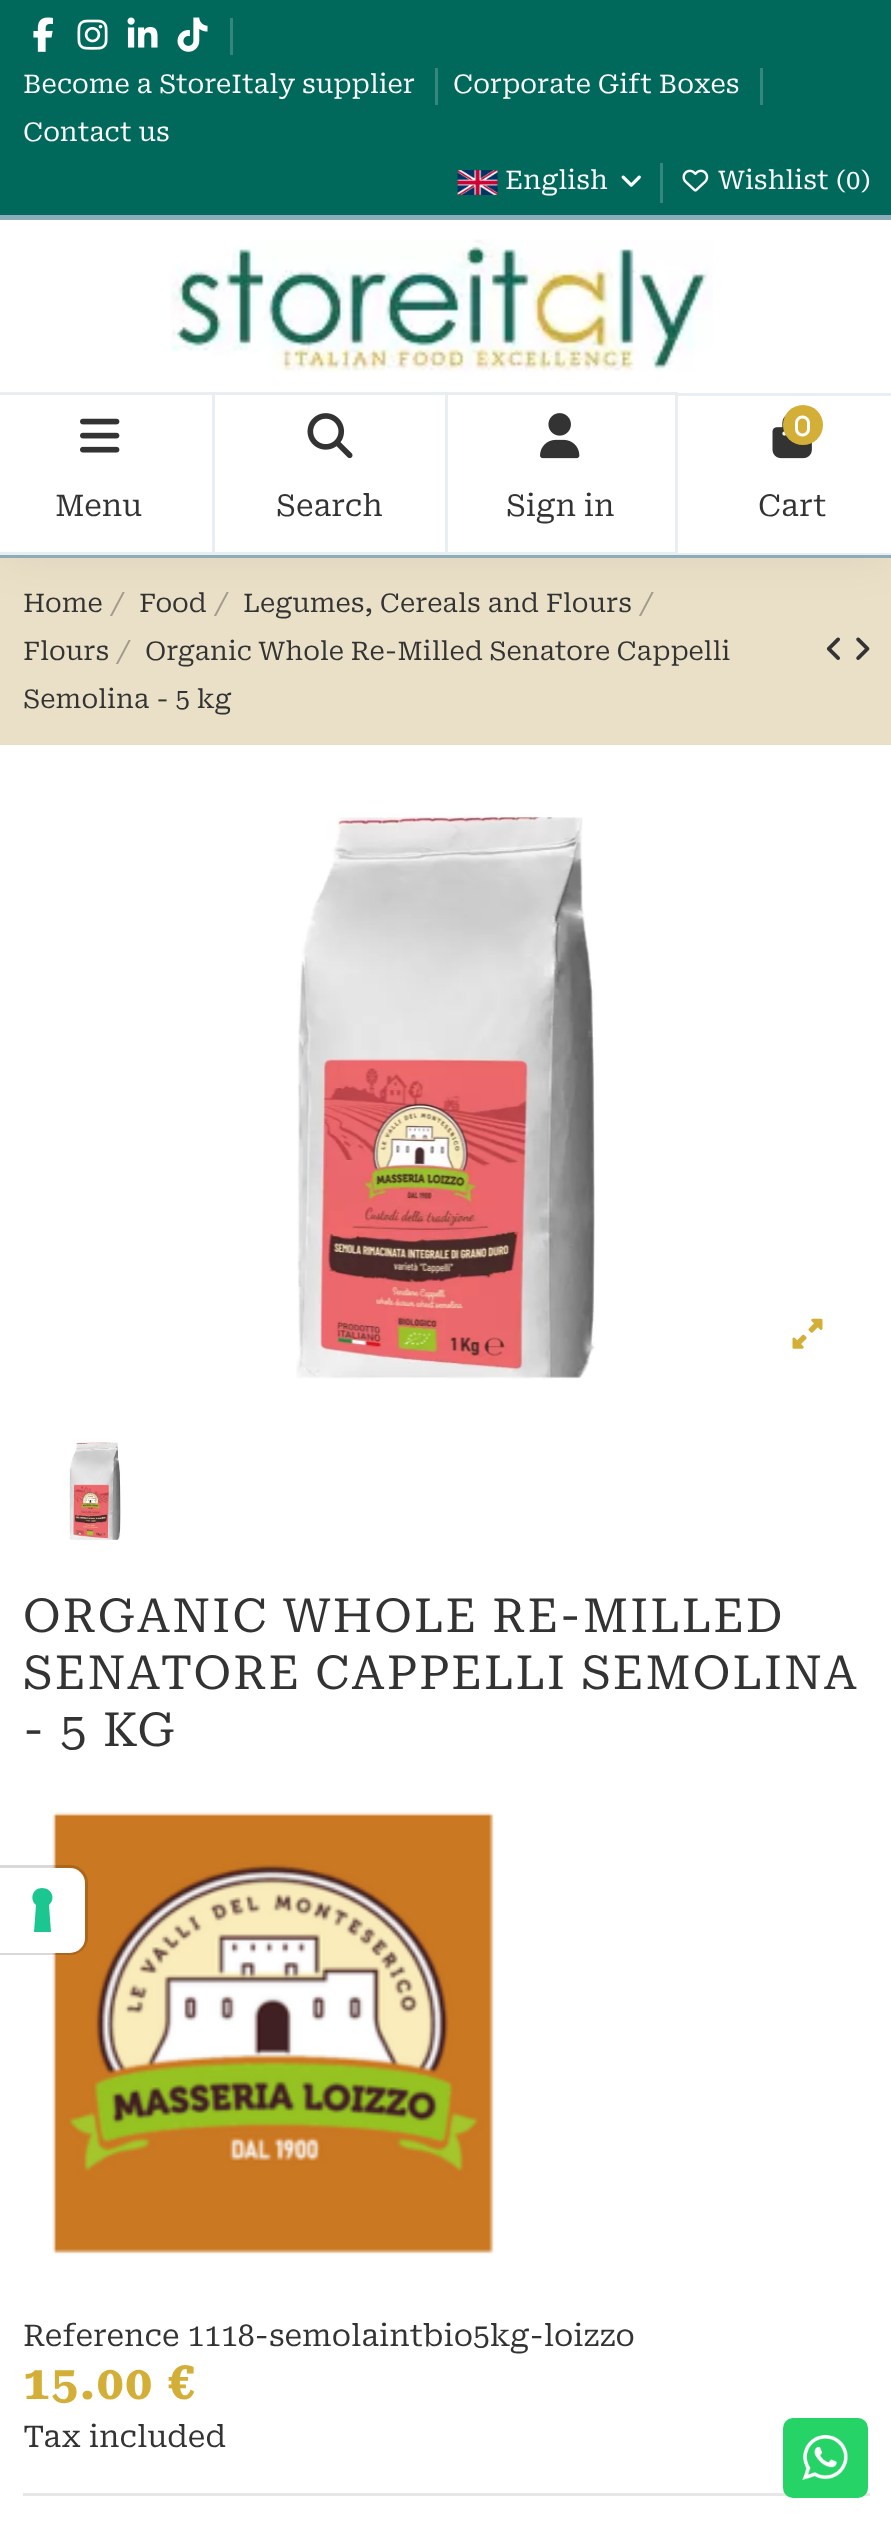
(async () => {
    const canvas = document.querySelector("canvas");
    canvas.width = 891;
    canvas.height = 2547;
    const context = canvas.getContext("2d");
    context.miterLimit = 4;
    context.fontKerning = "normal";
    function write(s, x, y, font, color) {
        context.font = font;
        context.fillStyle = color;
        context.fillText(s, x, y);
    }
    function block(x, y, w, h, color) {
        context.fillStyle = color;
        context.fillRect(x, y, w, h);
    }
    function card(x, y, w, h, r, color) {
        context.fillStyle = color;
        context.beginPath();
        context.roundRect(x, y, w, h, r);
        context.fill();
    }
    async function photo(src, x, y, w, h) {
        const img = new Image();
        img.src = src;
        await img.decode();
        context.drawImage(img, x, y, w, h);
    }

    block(0, 0, 891, 2547, "rgb(255, 255, 255)");
    block(0, 558, 891, 187, "rgb(234, 224, 200)");
    context.fillStyle = "rgba(0, 0, 0, 0.05)";
    context.filter = "blur(25px)";
    context.beginPath();
    context.rect(0, 0, 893, 558);
    context.fill();
    context.filter = "none";
    block(0, 220, 891, 335, "rgb(255, 255, 255)");
    block(678, 553, 213, 2, "rgb(232, 238, 241)");
    block(0, 555, 891, 3, "rgb(139, 172, 184)");
    block(0, 0, 891, 215, "rgb(0, 105, 92)");
    block(0, 215, 891, 5, "rgb(139, 172, 184)");
    await photo("media/1.png", 33, 17, 20, 35);
    await photo("media/2.png", 77, 19, 31, 31);
    await photo("media/3.png", 127, 17, 31, 31);
    await photo("media/4.png", 177, 17, 31, 35);
    block(230, 18, 3, 37, "rgb(51, 135, 125)");
    write("Become a StoreItaly supplier", 23, 93, "25.75px Roboto Serif", "rgb(255, 255, 255)");
    block(435, 68, 3, 37, "rgb(51, 135, 125)");
    write("Corporate Gift Boxes", 453, 93, "25.75px Roboto Serif", "rgb(255, 255, 255)");
    block(760, 68, 3, 37, "rgb(51, 135, 125)");
    write("Contact us", 23, 141, "25.75px Roboto Serif", "rgb(255, 255, 255)");
    await photo("media/5.png", 457, 170, 41, 25);
    write("English", 505, 189, "25.75px Roboto Serif", "rgb(255, 255, 255)");
    await photo("media/6.png", 621, 175, 20, 12);
    block(660, 163, 3, 40, "rgb(51, 135, 125)");
    await photo("media/7.png", 682, 169, 27, 23);
    write("Wishlist (0)", 718, 189, "25.75px Roboto Serif", "rgb(255, 255, 255)");
    await photo("media/8.png", 170, 239, 543, 133);
    context.fillStyle = "rgb(232, 238, 241)";
    context.beginPath();
    context.moveTo(-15, 392);
    context.lineTo(215, 392);
    context.lineTo(212, 395);
    context.lineTo(-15, 395);
    context.closePath();
    context.fill();
    context.fillStyle = "rgba(139, 172, 184, 0.2)";
    context.beginPath();
    context.moveTo(215, 392);
    context.lineTo(215, 555);
    context.lineTo(212, 552);
    context.lineTo(212, 395);
    context.closePath();
    context.fill();
    context.beginPath();
    context.moveTo(215, 555);
    context.lineTo(-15, 555);
    context.lineTo(-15, 552);
    context.lineTo(212, 552);
    context.closePath();
    context.fill();
    await photo("media/9.png", 80, 418, 40, 35);
    write("Menu", 55, 516, "30px 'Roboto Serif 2'", "rgb(51, 51, 51)");
    context.fillStyle = "rgb(232, 238, 241)";
    context.beginPath();
    context.moveTo(215, 392);
    context.lineTo(448, 392);
    context.lineTo(445, 395);
    context.lineTo(215, 395);
    context.closePath();
    context.fill();
    context.fillStyle = "rgba(139, 172, 184, 0.2)";
    context.beginPath();
    context.moveTo(448, 392);
    context.lineTo(448, 555);
    context.lineTo(445, 552);
    context.lineTo(445, 395);
    context.closePath();
    context.fill();
    context.beginPath();
    context.moveTo(448, 555);
    context.lineTo(215, 555);
    context.lineTo(215, 552);
    context.lineTo(445, 552);
    context.closePath();
    context.fill();
    await photo("media/10.png", 307, 413, 46, 46);
    write("Search", 276, 516, "30px 'Roboto Serif 2'", "rgb(51, 51, 51)");
    context.fillStyle = "rgb(232, 238, 241)";
    context.beginPath();
    context.moveTo(448, 392);
    context.lineTo(678, 392);
    context.lineTo(675, 395);
    context.lineTo(448, 395);
    context.closePath();
    context.fill();
    context.fillStyle = "rgba(139, 172, 184, 0.2)";
    context.beginPath();
    context.moveTo(678, 392);
    context.lineTo(678, 555);
    context.lineTo(675, 552);
    context.lineTo(675, 395);
    context.closePath();
    context.fill();
    context.beginPath();
    context.moveTo(678, 555);
    context.lineTo(448, 555);
    context.lineTo(448, 552);
    context.lineTo(675, 552);
    context.closePath();
    context.fill();
    await photo("media/11.png", 540, 413, 40, 46);
    write("Sign in", 506, 516, "30px 'Roboto Serif 2'", "rgb(51, 51, 51)");
    block(678, 393, 213, 3, "rgb(232, 238, 241)");
    await photo("media/13.png", 772, 414, 40, 45);
    context.fillStyle = "rgb(212, 175, 55)";
    context.beginPath();
    context.arc(803, 425, 20, 0, Math.PI * 2);
    context.fill();
    await photo("media/12.png", 795, 415, 15, 22);
    write("Cart", 758, 516, "30px 'Roboto Serif 2'", "rgb(51, 51, 51)");
    write("Home", 23, 612, "25.75px Roboto Serif", "rgb(51, 51, 51)");
    write("/", 110, 612, "25.75px Roboto Serif", "rgb(161, 155, 140)");
    write("Food", 139, 612, "25.75px Roboto Serif", "rgb(51, 51, 51)");
    write("/", 214, 612, "25.75px Roboto Serif", "rgb(161, 155, 140)");
    write("Legumes, Cereals and Flours", 243, 612, "25.75px Roboto Serif", "rgb(51, 51, 51)");
    write("/", 639, 612, "25.75px Roboto Serif", "rgb(161, 155, 140)");
    write("Flours", 23, 660, "25.75px Roboto Serif", "rgb(51, 51, 51)");
    write("/", 116, 660, "25.75px Roboto Serif", "rgb(161, 155, 140)");
    context.wordSpacing = "-0.5px";
    write("Organic Whole Re-Milled Senatore Cappelli", 145, 660, "25.75px Roboto Serif", "rgb(51, 51, 51)");
    context.wordSpacing = "0px";
    write("Semolina - 5 kg", 23, 708, "25.75px Roboto Serif", "rgb(51, 51, 51)");
    await photo("media/14.png", 826, 637, 14, 23);
    await photo("media/15.png", 856, 637, 14, 23);
    await photo("media/16.png", 296, 813, 299, 567);
    await photo("media/17.png", 792, 1318, 31, 31);
    await photo("media/18.png", 69, 1442, 52, 98);
    block(23, 2493, 847, 3, "rgb(231, 231, 231)");
    context.letterSpacing = "2.15px";
    write("ORGANIC WHOLE RE-MILLED", 23, 1632, "47.1px 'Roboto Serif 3'", "rgb(51, 51, 51)");
    write("SENATORE CAPPELLI SEMOLINA", 23, 1689, "47.1px 'Roboto Serif 3'", "rgb(51, 51, 51)");
    write("- 5 KG", 23, 1746, "47.1px 'Roboto Serif 3'", "rgb(51, 51, 51)");
    await photo("media/19.png", 52, 1812, 442, 442);
    context.letterSpacing = "0px";
    write("Reference 1118-semolaintbio5kg-loizzo", 23, 2346, "30px 'Roboto Serif 2'", "rgb(51, 51, 51)");
    context.letterSpacing = "2.15px";
    write("15.00 €", 23, 2399, "bold 47.1px Roboto Serif", "rgb(212, 175, 55)");
    context.letterSpacing = "0px";
    write("Tax included", 23, 2447, "30px 'Roboto Serif 2'", "rgb(51, 51, 51)");
    context.beginPath();
    context.moveTo(-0.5, 1866.5);
    context.lineTo(70, 1866.5);
    context.bezierCurveTo(79, 1866.5, 86.5, 1874, 86.5, 1883);
    context.lineTo(86.5, 1937);
    context.bezierCurveTo(86.5, 1946, 79, 1953.5, 70, 1953.5);
    context.lineTo(-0.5, 1953.5);
    context.closePath();
    context.strokeStyle = "rgba(0, 0, 0, 0.15)";
    context.lineWidth = 3;
    context.stroke();
    context.fillStyle = "rgb(255, 255, 255)";
    context.beginPath();
    context.roundRect(0, 1868, 85, 85, [0, 15, 15, 0]);
    context.fill();
    context.fillStyle = "rgb(28, 198, 145)";
    context.beginPath();
    context.moveTo(42, 1888);
    context.bezierCurveTo(52, 1888, 56, 1899, 49, 1905);
    context.lineTo(51, 1932);
    context.lineTo(34, 1932);
    context.lineTo(36, 1905);
    context.bezierCurveTo(29, 1899, 33, 1888, 42, 1888);
    context.closePath();
    context.fill("evenodd");
    card(783, 2418, 85, 80, 10, "rgb(37, 211, 102)");
    await photo("media/20.png", 802, 2435, 46, 45);
})();
